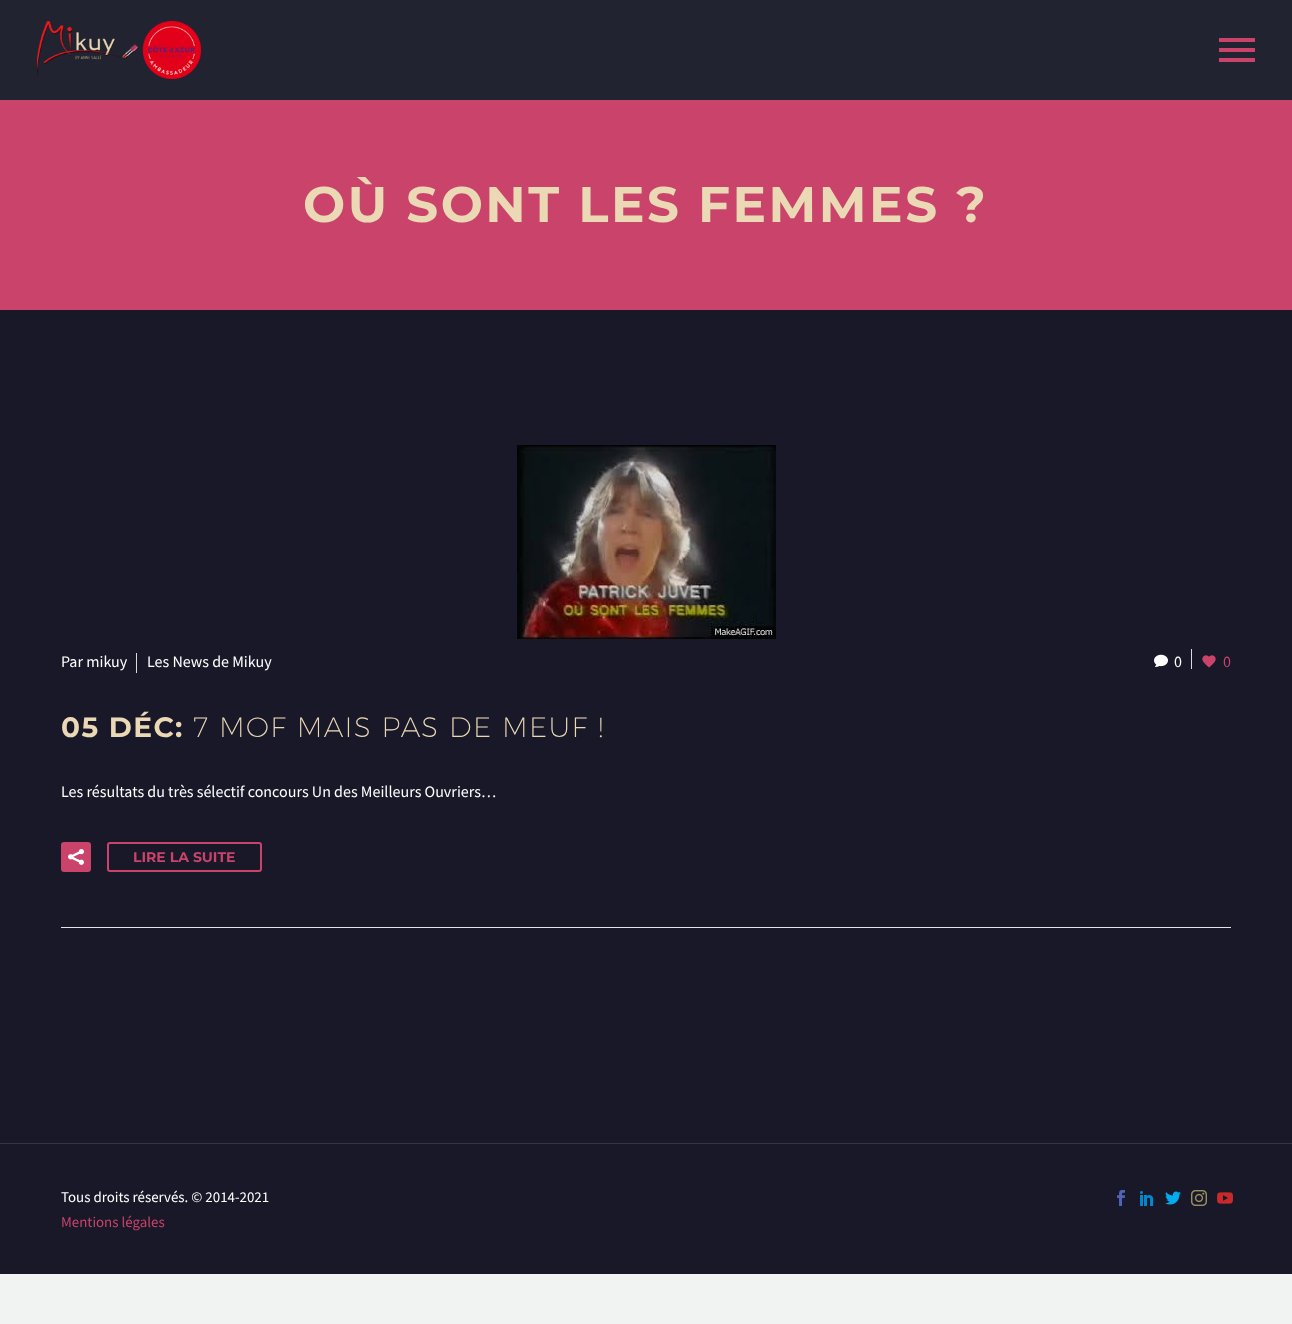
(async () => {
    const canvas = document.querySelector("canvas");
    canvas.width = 1292;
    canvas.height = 1324;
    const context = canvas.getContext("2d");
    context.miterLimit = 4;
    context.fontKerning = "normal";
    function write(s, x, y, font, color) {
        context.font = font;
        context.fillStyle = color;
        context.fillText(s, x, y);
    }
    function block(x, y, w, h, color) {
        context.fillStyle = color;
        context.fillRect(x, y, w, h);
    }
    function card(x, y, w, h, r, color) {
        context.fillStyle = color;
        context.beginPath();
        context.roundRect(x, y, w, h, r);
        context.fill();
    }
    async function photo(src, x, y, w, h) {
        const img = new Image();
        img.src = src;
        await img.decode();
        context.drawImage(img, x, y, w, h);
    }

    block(0, 0, 1292, 1324, "rgb(240, 243, 242)");
    block(0, 0, 1292, 100, "rgb(33, 35, 49)");
    await photo("media/1.png", 37, 21, 164, 58);
    block(1219, 38, 36, 4, "rgb(202, 67, 107)");
    block(1219, 48, 36, 4, "rgb(202, 67, 107)");
    block(1219, 58, 36, 4, "rgb(202, 67, 107)");
    block(0, 100, 1292, 210, "rgb(202, 67, 107)");
    context.letterSpacing = "2.5px";
    write("OÙ SONT LES FEMMES ?", 303, 222, "bold 50px Montserrat", "rgb(235, 216, 181)");
    block(0, 310, 1292, 833, "rgb(24, 24, 40)");
    block(61, 927, 1170, 1, "rgb(223, 229, 232)");
    await photo("media/2.png", 517, 445, 259, 194);
    context.letterSpacing = "0px";
    write("Par mikuy", 61, 667, "16px Source Sans Pro", "rgb(255, 255, 255)");
    block(136, 653, 1, 20, "rgb(212, 222, 225)");
    write("Les News de Mikuy", 147, 667, "16px Source Sans Pro", "rgb(255, 255, 255)");
    await photo("media/3.png", 1154, 654, 14, 13);
    write("0", 1174, 667, "16px Source Sans Pro", "rgb(255, 255, 255)");
    block(1191, 649, 1, 20, "rgb(212, 222, 225)");
    await photo("media/4.png", 1202, 655, 14, 13);
    write("0", 1223, 667, "16px Source Sans Pro", "rgb(202, 67, 107)");
    context.letterSpacing = "1.4px";
    write("05 DÉC:", 61, 737, "bold 28px Montserrat", "rgb(235, 216, 181)");
    write("7 MOF MAIS PAS DE MEUF !", 193, 737, "200 28px Montserrat", "rgb(235, 216, 181)");
    context.letterSpacing = "0px";
    write("Les résultats du très sélectif concours Un des Meilleurs Ouvriers…", 61, 797, "16px Source Sans Pro", "rgb(255, 255, 255)");
    card(61, 842, 30, 30, 3, "rgb(202, 67, 107)");
    await photo("media/5.png", 68, 849, 16, 16);
    context.beginPath();
    context.roundRect(108, 843, 153, 28, 2);
    context.strokeStyle = "rgb(202, 67, 107)";
    context.lineWidth = 2;
    context.stroke();
    write("LIRE LA SUITE", 133, 862, "bold 14px Montserrat", "rgb(202, 67, 107)");
    block(0, 1144, 1292, 130, "rgb(24, 24, 40)");
    block(0, 1143, 1292, 1, "rgb(49, 54, 70)");
    write("Tous droits réservés. © 2014-2021", 61, 1202, "14.9px Source Sans Pro", "rgb(255, 255, 255)");
    write("Mentions légales", 61, 1227, "14.9px Source Sans Pro", "rgb(202, 67, 107)");
    await photo("media/6.png", 1117, 1190, 8, 16);
    await photo("media/7.png", 1140, 1191, 14, 15);
    await photo("media/8.png", 1165, 1191, 16, 14);
    await photo("media/9.png", 1191, 1190, 16, 16);
    await photo("media/10.png", 1217, 1192, 16, 12);
})();
